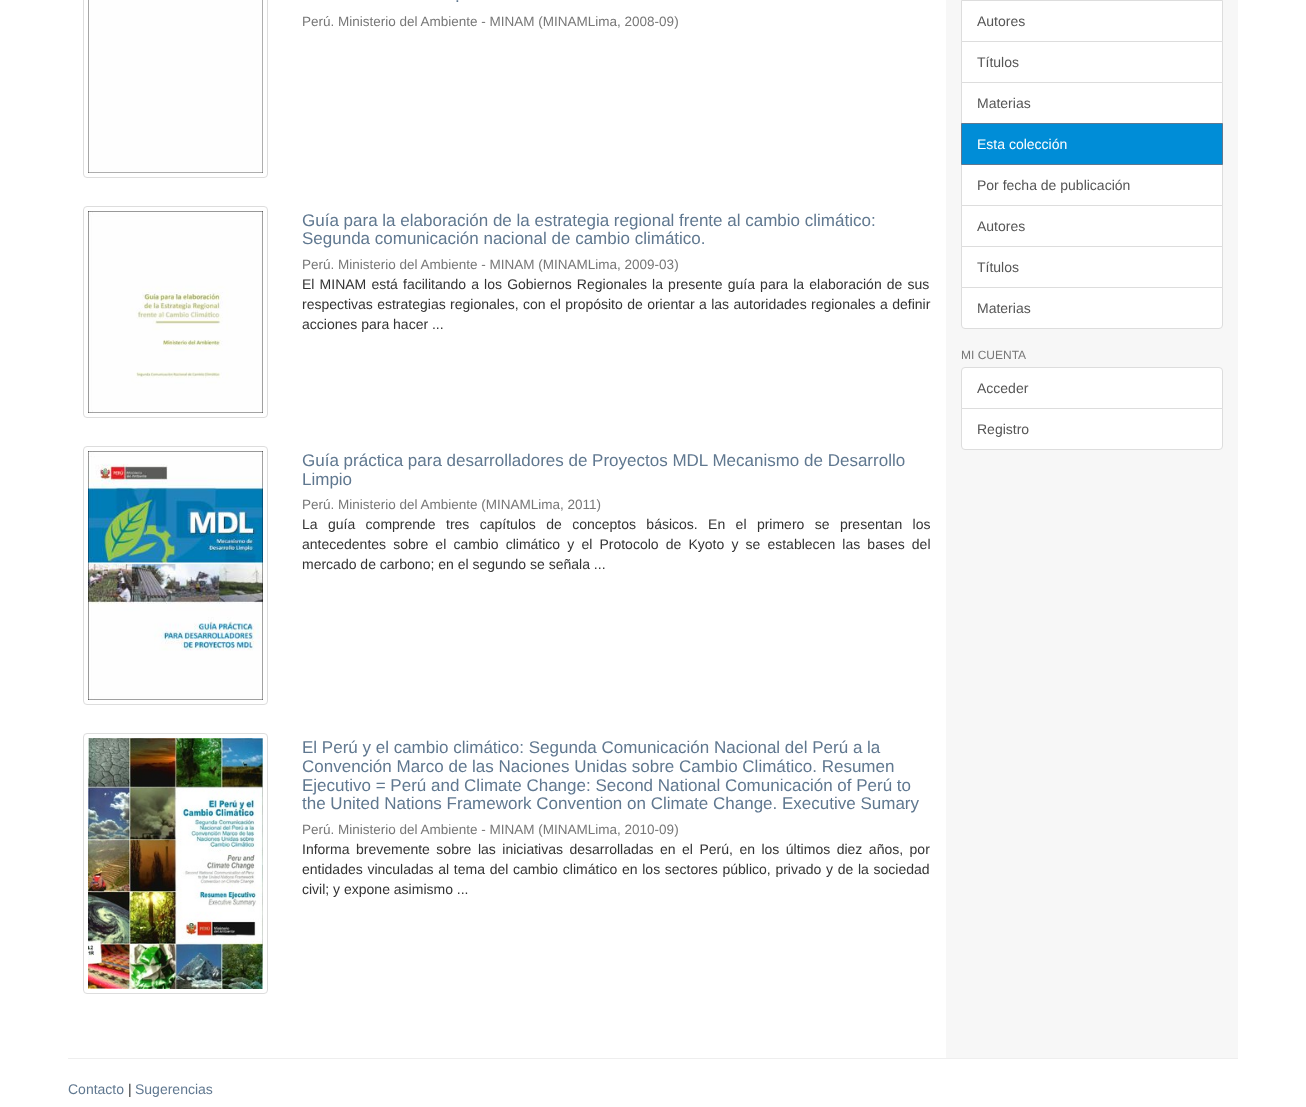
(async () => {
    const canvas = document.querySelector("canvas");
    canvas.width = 1306;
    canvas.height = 1107;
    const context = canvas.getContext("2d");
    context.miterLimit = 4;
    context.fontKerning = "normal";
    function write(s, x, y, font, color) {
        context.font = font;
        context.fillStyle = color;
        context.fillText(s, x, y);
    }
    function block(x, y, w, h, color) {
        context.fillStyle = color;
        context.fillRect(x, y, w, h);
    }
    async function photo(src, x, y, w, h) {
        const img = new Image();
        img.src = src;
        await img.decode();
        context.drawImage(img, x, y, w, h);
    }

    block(0, 0, 1306, 1107, "rgb(255, 255, 255)");
    block(946, 0, 292, 1058, "rgb(247, 247, 247)");
    context.beginPath();
    context.roundRect(83.5, -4.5, 184, 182, 3.5);
    context.strokeStyle = "rgb(221, 221, 221)";
    context.stroke();
    await photo("media/1.png", 88, 0, 175, 173);
    write(".", 455, 2, "17px Liberation Sans", "rgb(96, 120, 144)");
    write("Perú. Ministerio del Ambiente - MINAM (MINAMLima, 2008-09)", 302, 26, "13.5px Liberation Sans", "rgb(119, 119, 119)");
    context.beginPath();
    context.roundRect(83.5, 206.5, 184, 211, 3.5);
    context.stroke();
    await photo("media/2.png", 88, 211, 175, 202);
    write("Guía para la elaboración de la estrategia regional frente al cambio climático:", 302, 226, "17px Liberation Sans", "rgb(96, 120, 144)");
    write("Segunda comunicación nacional de cambio climático.", 302, 244, "17px Liberation Sans", "rgb(96, 120, 144)");
    write("Perú. Ministerio del Ambiente - MINAM (MINAMLima, 2009-03)", 302, 269, "13.5px Liberation Sans", "rgb(119, 119, 119)");
    context.wordSpacing = "1.25px";
    write("El MINAM está facilitando a los Gobiernos Regionales la presente guía para la elaboración de sus", 302, 289, "14px Liberation Sans", "rgb(51, 51, 51)");
    context.wordSpacing = "0.5px";
    write("respectivas estrategias regionales, con el propósito de orientar a las autoridades regionales a definir", 302, 309, "14px Liberation Sans", "rgb(51, 51, 51)");
    context.wordSpacing = "0px";
    write("acciones para hacer ...", 302, 329, "14px Liberation Sans", "rgb(51, 51, 51)");
    context.beginPath();
    context.roundRect(83.5, 446.5, 184, 258, 3.5);
    context.stroke();
    await photo("media/3.png", 88, 451, 175, 249);
    write("Guía práctica para desarrolladores de Proyectos MDL Mecanismo de Desarrollo", 302, 466, "17px Liberation Sans", "rgb(96, 120, 144)");
    write("Limpio", 302, 485, "17px Liberation Sans", "rgb(96, 120, 144)");
    write("Perú. Ministerio del Ambiente (MINAMLima, 2011)", 302, 509, "13.5px Liberation Sans", "rgb(119, 119, 119)");
    context.wordSpacing = "6.5px";
    write("La guía comprende tres capítulos de conceptos básicos. En el primero se presentan los", 302, 529, "14px Liberation Sans", "rgb(51, 51, 51)");
    context.wordSpacing = "3.25px";
    write("antecedentes sobre el cambio climático y el Protocolo de Kyoto y se establecen las bases del", 302, 549, "14px Liberation Sans", "rgb(51, 51, 51)");
    context.wordSpacing = "0px";
    write("mercado de carbono; en el segundo se señala ...", 302, 569, "14px Liberation Sans", "rgb(51, 51, 51)");
    context.beginPath();
    context.roundRect(83.5, 733.5, 184, 260, 3.5);
    context.stroke();
    await photo("media/4.png", 88, 738, 175, 251);
    write("El Perú y el cambio climático: Segunda Comunicación Nacional del Perú a la", 302, 753, "17px Liberation Sans", "rgb(96, 120, 144)");
    write("Convención Marco de las Naciones Unidas sobre Cambio Climático. Resumen", 302, 772, "17px Liberation Sans", "rgb(96, 120, 144)");
    write("Ejecutivo = Perú and Climate Change: Second National Comunicación of Perú to", 302, 791, "17px Liberation Sans", "rgb(96, 120, 144)");
    write("the United Nations Framework Convention on Climate Change. Executive Sumary", 302, 809, "17px Liberation Sans", "rgb(96, 120, 144)");
    write("Perú. Ministerio del Ambiente - MINAM (MINAMLima, 2010-09)", 302, 834, "13.5px Liberation Sans", "rgb(119, 119, 119)");
    context.wordSpacing = "2.6px";
    write("Informa brevemente sobre las iniciativas desarrolladas en el Perú, en los últimos diez años, por", 302, 854, "14px Liberation Sans", "rgb(51, 51, 51)");
    context.wordSpacing = "0.8px";
    write("entidades vinculadas al tema del cambio climático en los sectores público, privado y de la sociedad", 302, 874, "14px Liberation Sans", "rgb(51, 51, 51)");
    context.wordSpacing = "0px";
    write("civil; y expone asimismo ...", 302, 894, "14px Liberation Sans", "rgb(51, 51, 51)");
    context.fillStyle = "rgb(255, 255, 255)";
    context.beginPath();
    context.rect(961.5, 0.5, 261, 41);
    context.fill();
    context.stroke();
    write("Autores", 977, 26, "14px Liberation Sans", "rgb(85, 85, 85)");
    context.fillStyle = "rgb(255, 255, 255)";
    context.beginPath();
    context.rect(961.5, 41.5, 261, 41);
    context.fill();
    context.stroke();
    write("Títulos", 977, 67, "14px Liberation Sans", "rgb(85, 85, 85)");
    context.fillStyle = "rgb(255, 255, 255)";
    context.beginPath();
    context.rect(961.5, 82.5, 261, 41);
    context.fill();
    context.stroke();
    write("Materias", 977, 108, "14px Liberation Sans", "rgb(85, 85, 85)");
    context.fillStyle = "rgb(255, 255, 255)";
    context.beginPath();
    context.rect(961.5, 164.5, 261, 41);
    context.fill();
    context.stroke();
    context.fillStyle = "rgb(0, 141, 215)";
    context.beginPath();
    context.rect(961.5, 123.5, 261, 41);
    context.fill();
    context.strokeStyle = "rgb(96, 120, 144)";
    context.stroke();
    write("Esta colección", 977, 149, "14px Liberation Sans", "rgb(255, 255, 255)");
    write("Por fecha de publicación", 977, 190, "14px Liberation Sans", "rgb(85, 85, 85)");
    context.fillStyle = "rgb(255, 255, 255)";
    context.beginPath();
    context.rect(961.5, 205.5, 261, 41);
    context.fill();
    context.strokeStyle = "rgb(221, 221, 221)";
    context.stroke();
    write("Autores", 977, 231, "14px Liberation Sans", "rgb(85, 85, 85)");
    context.fillStyle = "rgb(255, 255, 255)";
    context.beginPath();
    context.rect(961.5, 246.5, 261, 41);
    context.fill();
    context.stroke();
    write("Títulos", 977, 272, "14px Liberation Sans", "rgb(85, 85, 85)");
    context.fillStyle = "rgb(255, 255, 255)";
    context.beginPath();
    context.roundRect(961.5, 287.5, 261, 41, [0, 0, 3.5, 3.5]);
    context.fill();
    context.stroke();
    write("Materias", 977, 313, "14px Liberation Sans", "rgb(85, 85, 85)");
    write("MI CUENTA", 961, 359, "12px Liberation Sans", "rgb(119, 119, 119)");
    context.fillStyle = "rgb(255, 255, 255)";
    context.beginPath();
    context.roundRect(961.5, 367.5, 261, 41, [3.5, 3.5, 0, 0]);
    context.fill();
    context.stroke();
    write("Acceder", 977, 393, "14px Liberation Sans", "rgb(85, 85, 85)");
    context.fillStyle = "rgb(255, 255, 255)";
    context.beginPath();
    context.roundRect(961.5, 408.5, 261, 41, [0, 0, 3.5, 3.5]);
    context.fill();
    context.stroke();
    write("Registro", 977, 434, "14px Liberation Sans", "rgb(85, 85, 85)");
    block(68, 1058, 1170, 1, "rgb(238, 238, 238)");
    write("Contacto", 68, 1094, "14px Liberation Sans", "rgb(96, 120, 144)");
    write("|", 128, 1094, "14px Liberation Sans", "rgb(51, 51, 51)");
    write("Sugerencias", 135, 1094, "14px Liberation Sans", "rgb(96, 120, 144)");
})();
